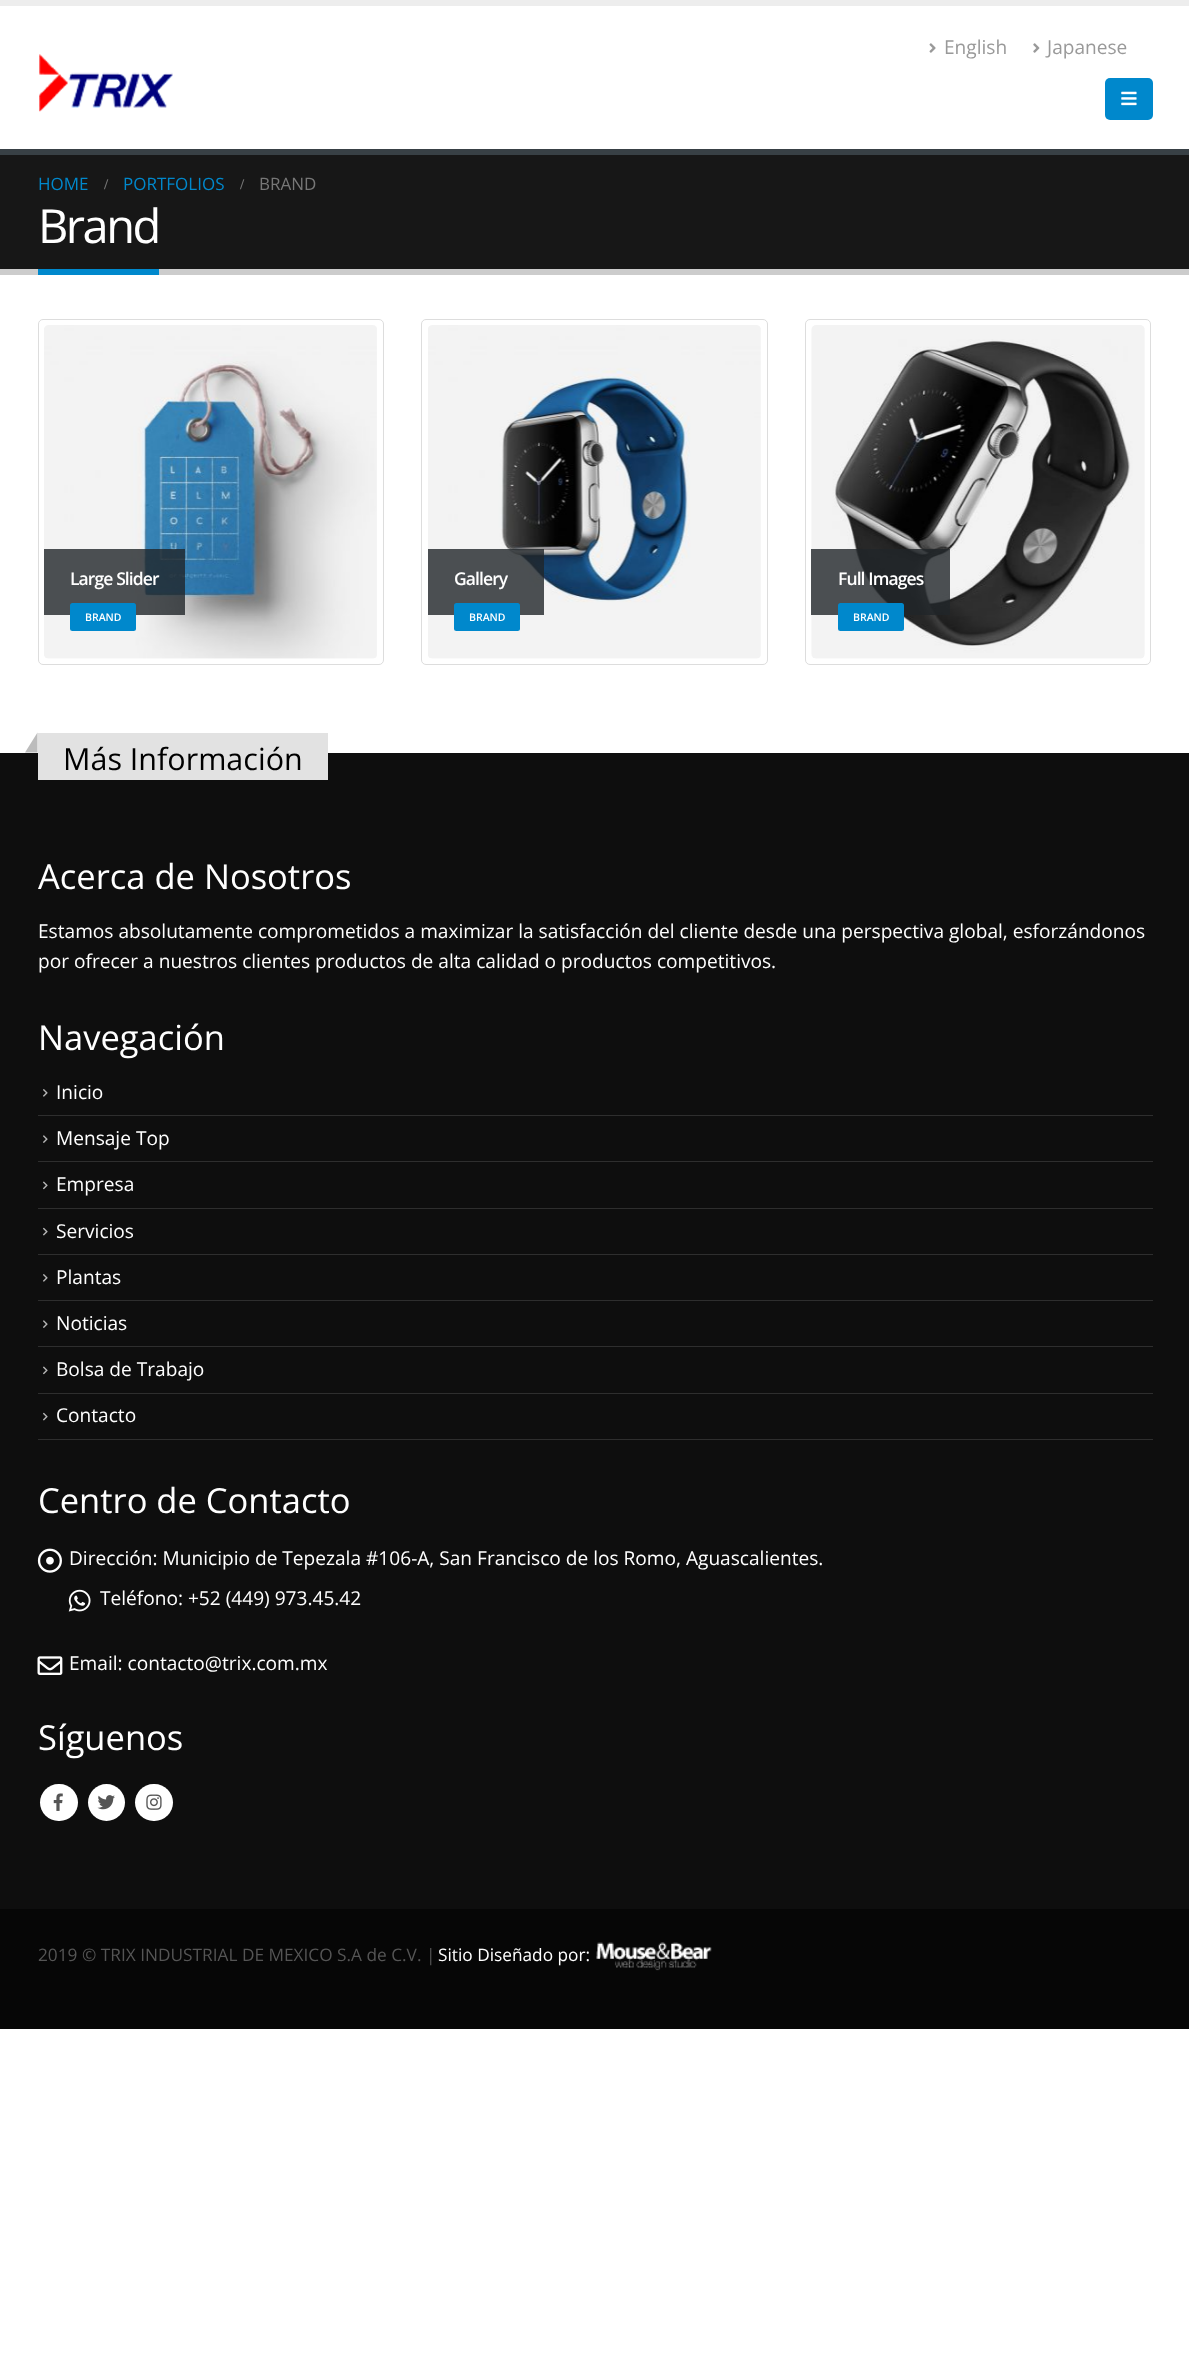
(async () => {
    const canvas = document.querySelector("canvas");
    canvas.width = 1189;
    canvas.height = 2375;
    const context = canvas.getContext("2d");
    context.miterLimit = 4;
    context.fontKerning = "normal";
    function write(s, x, y, font, color) {
        context.font = font;
        context.fillStyle = color;
        context.fillText(s, x, y);
    }
    function block(x, y, w, h, color) {
        context.fillStyle = color;
        context.fillRect(x, y, w, h);
    }
    function card(x, y, w, h, r, color) {
        context.fillStyle = color;
        context.beginPath();
        context.roundRect(x, y, w, h, r);
        context.fill();
    }
    async function photo(src, x, y, w, h) {
        const img = new Image();
        img.src = src;
        await img.decode();
        context.drawImage(img, x, y, w, h);
    }

    block(0, 0, 1189, 2375, "rgb(255, 255, 255)");
    block(0, 0, 1189, 6, "rgb(237, 237, 237)");
    await photo("media/1.png", 929, 43, 7, 10);
    write("English", 944, 54, "19.12px Open Sans", "rgb(153, 153, 153)");
    await photo("media/2.png", 1033, 43, 7, 10);
    write("Japanese", 1047, 54, "19.12px Open Sans", "rgb(153, 153, 153)");
    card(1105, 78, 48, 42, 5, "rgb(0, 136, 204)");
    await photo("media/3.png", 1121, 91, 16, 15);
    await photo("media/4.png", 39, 54, 134, 58);
    block(0, 155, 1189, 114, "rgb(23, 23, 23)");
    block(0, 149, 1189, 6, "rgb(56, 64, 69)");
    block(0, 269, 1189, 6, "rgb(204, 204, 204)");
    write("HOME", 38, 190, "17px Open Sans", "rgb(0, 136, 204)");
    write("/", 104, 189, "bold 15px Liberation Serif", "rgb(119, 119, 119)");
    write("PORTFOLIOS", 123, 190, "17px Open Sans", "rgb(0, 136, 204)");
    write("/", 240, 189, "bold 15px Liberation Serif", "rgb(119, 119, 119)");
    write("BRAND", 259, 190, "17px Open Sans", "rgb(119, 119, 119)");
    context.letterSpacing = "-2.5px";
    write("Brand", 38, 243, "47px Open Sans", "rgb(255, 255, 255)");
    block(38, 269, 121, 6, "rgb(0, 136, 204)");
    context.beginPath();
    context.roundRect(38.5, 319.5, 345, 345, 4.5);
    context.strokeStyle = "rgb(221, 221, 221)";
    context.stroke();
    await photo("media/5.png", 44, 325, 333, 334);
    block(44, 549, 141, 66, "rgba(33, 37, 41, 0.8)");
    context.letterSpacing = "-0.9px";
    write("Large Slider", 70, 585, "600 17.5px Open Sans", "rgb(255, 255, 255)");
    card(70, 603, 66, 28, 2.5, "rgb(0, 136, 204)");
    context.letterSpacing = "0px";
    write("BRAND", 85, 621, "600 10.5px Open Sans", "rgb(255, 255, 255)");
    context.beginPath();
    context.roundRect(421.5, 319.5, 346, 345, 4.5);
    context.stroke();
    await photo("media/6.png", 428, 325, 333, 334);
    block(428, 549, 116, 66, "rgba(33, 37, 41, 0.8)");
    context.letterSpacing = "-0.9px";
    write("Gallery", 454, 585, "600 17.5px Open Sans", "rgb(255, 255, 255)");
    card(454, 603, 66, 28, 2.5, "rgb(0, 136, 204)");
    context.letterSpacing = "0px";
    write("BRAND", 469, 621, "600 10.5px Open Sans", "rgb(255, 255, 255)");
    context.beginPath();
    context.roundRect(805.5, 319.5, 345, 345, 4.5);
    context.stroke();
    await photo("media/7.png", 811, 325, 334, 334);
    block(811, 549, 139, 66, "rgba(33, 37, 41, 0.8)");
    context.letterSpacing = "-0.9px";
    write("Full Images", 838, 585, "600 17.5px Open Sans", "rgb(255, 255, 255)");
    card(838, 603, 66, 28, 2.5, "rgb(0, 136, 204)");
    context.letterSpacing = "0px";
    write("BRAND", 853, 621, "600 10.5px Open Sans", "rgb(255, 255, 255)");
    block(0, 753, 1189, 1156, "rgb(14, 14, 14)");
    block(38, 733, 290, 47, "rgb(226, 226, 226)");
    context.fillStyle = "rgb(188, 188, 188)";
    context.beginPath();
    context.moveTo(37.5, 732.5);
    context.lineTo(37.5, 752.5);
    context.lineTo(25, 752.5);
    context.closePath();
    context.fill();
    write("Más Información", 63, 770, "30.5px Open Sans", "rgb(0, 0, 0)");
    write("Acerca de Nosotros", 38, 889, "34.5px Open Sans", "rgb(255, 255, 255)");
    write("Estamos absolutamente comprometidos a maximizar la satisfacción del cliente desde una perspectiva global, esforzándonos", 38, 938, "19.12px Open Sans", "rgb(255, 255, 255)");
    write("por ofrecer a nuestros clientes productos de alta calidad o productos competitivos.", 38, 968, "19.12px Open Sans", "rgb(255, 255, 255)");
    write("Navegación", 38, 1050, "34.5px Open Sans", "rgb(255, 255, 255)");
    block(38, 1439, 1115, 1, "rgb(46, 46, 46)");
    await photo("media/8.png", 43, 1089, 5, 8);
    write("Inicio", 56, 1099, "19.12px Open Sans", "rgb(255, 255, 255)");
    block(38, 1115, 1115, 1, "rgb(46, 46, 46)");
    await photo("media/9.png", 43, 1135, 5, 8);
    write("Mensaje Top", 56, 1145, "19.12px Open Sans", "rgb(255, 255, 255)");
    block(38, 1161, 1115, 1, "rgb(46, 46, 46)");
    await photo("media/10.png", 43, 1181, 5, 9);
    write("Empresa", 56, 1191, "19.12px Open Sans", "rgb(255, 255, 255)");
    block(38, 1208, 1115, 1, "rgb(46, 46, 46)");
    await photo("media/11.png", 43, 1227, 5, 9);
    write("Servicios", 56, 1238, "19.12px Open Sans", "rgb(255, 255, 255)");
    block(38, 1254, 1115, 1, "rgb(46, 46, 46)");
    await photo("media/8.png", 43, 1274, 5, 8);
    write("Plantas", 56, 1284, "19.12px Open Sans", "rgb(255, 255, 255)");
    block(38, 1300, 1115, 1, "rgb(46, 46, 46)");
    await photo("media/9.png", 43, 1320, 5, 8);
    write("Noticias", 56, 1330, "19.12px Open Sans", "rgb(255, 255, 255)");
    block(38, 1346, 1115, 1, "rgb(46, 46, 46)");
    await photo("media/10.png", 43, 1366, 5, 9);
    write("Bolsa de Trabajo", 56, 1376, "19.12px Open Sans", "rgb(255, 255, 255)");
    block(38, 1393, 1115, 1, "rgb(46, 46, 46)");
    await photo("media/11.png", 43, 1412, 5, 9);
    write("Contacto", 56, 1422, "19.12px Open Sans", "rgb(255, 255, 255)");
    write("Centro de Contacto", 38, 1513, "34.5px Open Sans", "rgb(255, 255, 255)");
    await photo("media/12.png", 37, 1548, 25, 25);
    write("Dirección: Municipio de Tepezala #106-A, San Francisco de los Romo, Aguascalientes.", 69, 1565, "19.12px Open Sans", "rgb(255, 255, 255)");
    await photo("media/13.png", 68, 1589, 23, 23);
    write("Teléfono: +52 (449) 973.45.42", 100, 1605, "19.12px Open Sans", "rgb(255, 255, 255)");
    await photo("media/14.png", 37, 1656, 26, 19);
    write("Email: contacto@trix.com.mx", 69, 1670, "19.12px Open Sans", "rgb(255, 255, 255)");
    write("Síguenos", 38, 1750, "34.5px Open Sans", "rgb(255, 255, 255)");
    card(40, 1784, 38, 37, 18.5, "rgb(255, 255, 255)");
    await photo("media/15.png", 53, 1793, 10, 18);
    context.beginPath();
    context.arc(106.5, 1802.5, 18.5, 0, Math.PI * 2);
    context.fill();
    await photo("media/16.png", 97, 1795, 18, 15);
    card(135, 1784, 38, 37, 18.5, "rgb(255, 255, 255)");
    await photo("media/17.png", 146, 1794, 16, 16);
    block(0, 1909, 1189, 120, "rgb(6, 6, 6)");
    write("2019 © TRIX INDUSTRIAL DE MEXICO S.A de C.V. |", 38, 1961, "17.25px Open Sans", "rgb(85, 85, 85)");
    write("Sitio Diseñado por:", 438, 1961, "17.25px Open Sans", "rgb(255, 255, 255)");
    await photo("media/18.png", 596, 1942, 116, 29);
})();
